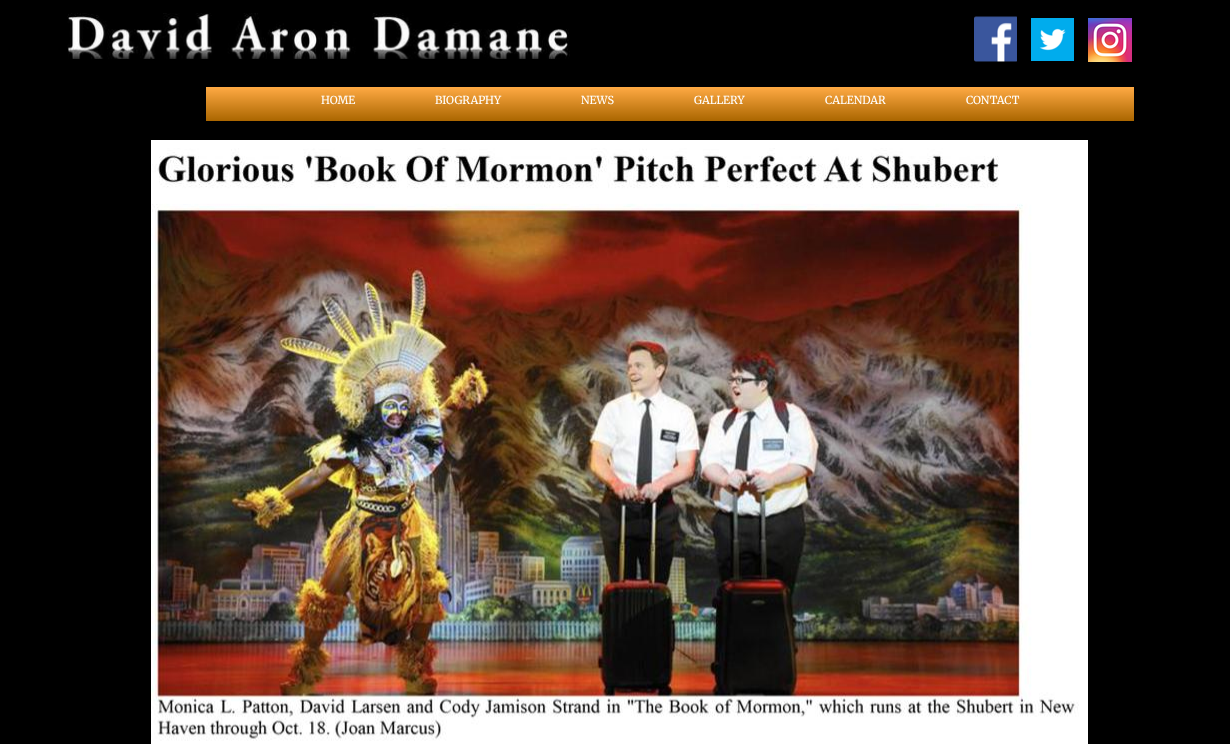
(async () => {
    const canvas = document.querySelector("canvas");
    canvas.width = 1230;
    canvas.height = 744;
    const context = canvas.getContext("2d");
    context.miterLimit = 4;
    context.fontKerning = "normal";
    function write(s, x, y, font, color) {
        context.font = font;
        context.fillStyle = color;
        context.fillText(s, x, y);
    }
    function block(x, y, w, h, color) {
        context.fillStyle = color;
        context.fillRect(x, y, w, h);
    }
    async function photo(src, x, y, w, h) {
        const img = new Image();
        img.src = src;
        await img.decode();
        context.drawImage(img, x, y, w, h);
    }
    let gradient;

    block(0, 0, 1230, 744, "rgb(0, 0, 0)");
    await photo("media/1.png", 67, 13, 503, 46);
    await photo("media/2.png", 974, 16, 43, 46);
    await photo("media/3.png", 1031, 18, 43, 43);
    await photo("media/4.png", 1088, 18, 44, 44);
    gradient = context.createLinearGradient(670, 87, 670, 121);
    gradient.addColorStop(0, "rgb(255, 170, 68)");
    gradient.addColorStop(1, "rgb(170, 102, 0)");
    context.fillStyle = gradient;
    context.fillRect(206, 87, 928, 34);
    write("HOME", 321, 104, "300 11px Merriweather", "rgb(255, 255, 255)");
    write("BIOGRAPHY", 435, 104, "300 11px Merriweather", "rgb(255, 255, 255)");
    write("NEWS", 581, 104, "300 11px Merriweather", "rgb(255, 255, 255)");
    write("GALLERY", 694, 104, "300 11px Merriweather", "rgb(255, 255, 255)");
    write("CALENDAR", 825, 104, "300 11px Merriweather", "rgb(255, 255, 255)");
    write("CONTACT", 966, 104, "300 11px Merriweather", "rgb(255, 255, 255)");
    await photo("media/5.png", 151, 140, 937, 604);
})();
